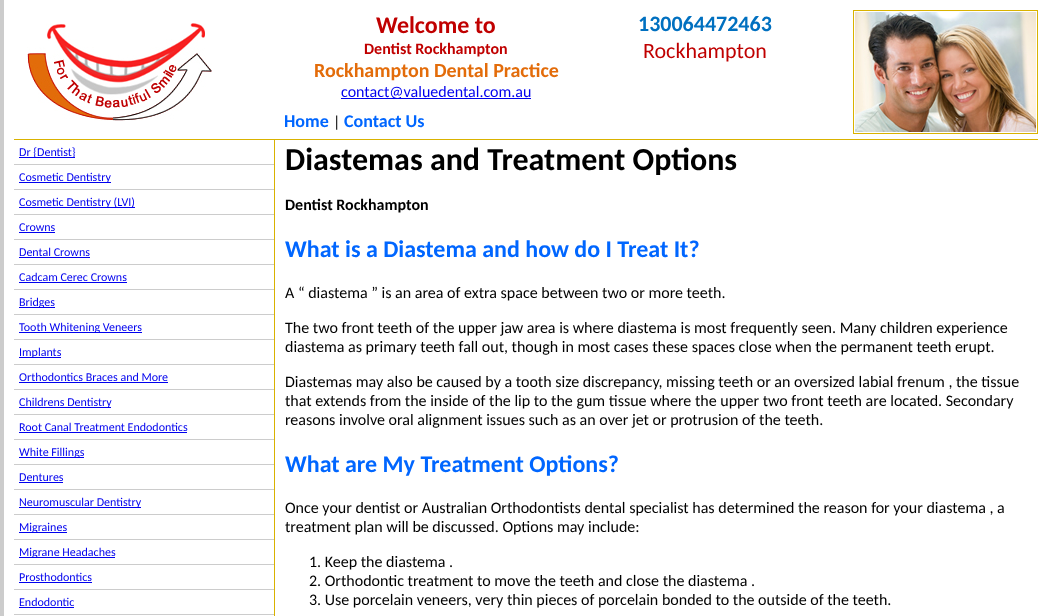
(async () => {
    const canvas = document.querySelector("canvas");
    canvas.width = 1045;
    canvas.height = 616;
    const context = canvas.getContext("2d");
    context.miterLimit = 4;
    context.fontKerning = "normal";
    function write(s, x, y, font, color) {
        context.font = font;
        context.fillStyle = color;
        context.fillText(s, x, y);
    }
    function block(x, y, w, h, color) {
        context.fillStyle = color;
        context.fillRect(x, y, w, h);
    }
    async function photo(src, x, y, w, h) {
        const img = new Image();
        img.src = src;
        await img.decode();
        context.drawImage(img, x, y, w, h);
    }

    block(0, 0, 1045, 616, "rgb(204, 204, 204)");
    block(4, 0, 1041, 616, "rgb(255, 255, 255)");
    block(14, 139, 1024, 1, "rgb(217, 178, 0)");
    await photo("media/1.png", 27, 23, 185, 98);
    write("Welcome to", 376, 33, "bold 24px Carlito", "rgb(192, 0, 0)");
    write("Dentist Rockhampton", 364, 54, "bold 16px Carlito", "rgb(192, 0, 0)");
    write("Rockhampton Dental Practice", 314, 77, "bold 20px Carlito", "rgb(227, 108, 10)");
    block(341, 98, 190, 1, "rgb(0, 0, 238)");
    write("contact@valuedental.com.au", 341, 97, "16px Carlito", "rgb(0, 0, 238)");
    write("Home", 284, 127, "bold 18px Carlito", "rgb(0, 102, 255)");
    write("|", 333, 127, "16px Carlito", "rgb(0, 0, 0)");
    write("Contact Us", 344, 127, "bold 18px Carlito", "rgb(0, 102, 255)");
    write("130064472463", 638, 31, "bold 22px Carlito", "rgb(0, 112, 192)");
    write("Rockhampton", 643, 58, "22px Carlito", "rgb(192, 0, 0)");
    context.strokeStyle = "rgb(217, 178, 0)";
    context.strokeRect(853.5, 10.5, 184, 123);
    await photo("media/2.png", 855, 12, 181, 120);
    block(274, 140, 1, 476, "rgb(217, 178, 0)");
    block(14, 164, 260, 1, "rgb(204, 204, 204)");
    block(19, 157, 56, 1, "rgb(0, 0, 238)");
    write("Dr {Dentist}", 19, 156, "12px Carlito", "rgb(0, 0, 238)");
    block(14, 189, 260, 1, "rgb(204, 204, 204)");
    block(19, 182, 92, 1, "rgb(0, 0, 238)");
    write("Cosmetic Dentistry", 19, 181, "12px Carlito", "rgb(0, 0, 238)");
    block(14, 214, 260, 1, "rgb(204, 204, 204)");
    block(19, 207, 116, 1, "rgb(0, 0, 238)");
    write("Cosmetic Dentistry (LVI)", 19, 206, "12px Carlito", "rgb(0, 0, 238)");
    block(14, 239, 260, 1, "rgb(204, 204, 204)");
    write("Crowns", 19, 231, "12px Carlito", "rgb(0, 0, 238)");
    block(19, 232, 36, 1, "rgb(0, 0, 238)");
    block(14, 264, 260, 1, "rgb(204, 204, 204)");
    write("Dental Crowns", 19, 256, "12px Carlito", "rgb(0, 0, 238)");
    block(19, 257, 71, 1, "rgb(0, 0, 238)");
    block(14, 289, 260, 1, "rgb(204, 204, 204)");
    write("Cadcam Cerec Crowns", 19, 281, "12px Carlito", "rgb(0, 0, 238)");
    block(19, 282, 108, 1, "rgb(0, 0, 238)");
    block(14, 314, 260, 1, "rgb(204, 204, 204)");
    block(19, 307, 36, 1, "rgb(0, 0, 238)");
    write("Bridges", 19, 306, "12px Carlito", "rgb(0, 0, 238)");
    block(14, 339, 260, 1, "rgb(204, 204, 204)");
    block(19, 332, 123, 1, "rgb(0, 0, 238)");
    write("Tooth Whitening Veneers", 19, 331, "12px Carlito", "rgb(0, 0, 238)");
    block(14, 364, 260, 1, "rgb(204, 204, 204)");
    block(19, 357, 42, 1, "rgb(0, 0, 238)");
    write("Implants", 19, 356, "12px Carlito", "rgb(0, 0, 238)");
    block(14, 389, 260, 1, "rgb(204, 204, 204)");
    write("Orthodontics Braces and More", 19, 381, "12px Carlito", "rgb(0, 0, 238)");
    block(19, 382, 149, 1, "rgb(0, 0, 238)");
    block(14, 414, 260, 1, "rgb(204, 204, 204)");
    block(19, 407, 92, 1, "rgb(0, 0, 238)");
    write("Childrens Dentistry", 19, 406, "12px Carlito", "rgb(0, 0, 238)");
    block(14, 439, 260, 1, "rgb(204, 204, 204)");
    write("Root Canal Treatment Endodontics", 19, 431, "12px Carlito", "rgb(0, 0, 238)");
    block(19, 432, 168, 1, "rgb(0, 0, 238)");
    block(14, 464, 260, 1, "rgb(204, 204, 204)");
    block(19, 457, 65, 1, "rgb(0, 0, 238)");
    write("White Fillings", 19, 456, "12px Carlito", "rgb(0, 0, 238)");
    block(14, 489, 260, 1, "rgb(204, 204, 204)");
    write("Dentures", 19, 481, "12px Carlito", "rgb(0, 0, 238)");
    block(19, 482, 44, 1, "rgb(0, 0, 238)");
    block(14, 514, 260, 1, "rgb(204, 204, 204)");
    block(19, 507, 122, 1, "rgb(0, 0, 238)");
    write("Neuromuscular Dentistry", 19, 506, "12px Carlito", "rgb(0, 0, 238)");
    block(14, 539, 260, 1, "rgb(204, 204, 204)");
    block(19, 532, 48, 1, "rgb(0, 0, 238)");
    write("Migraines", 19, 531, "12px Carlito", "rgb(0, 0, 238)");
    block(14, 564, 260, 1, "rgb(204, 204, 204)");
    block(19, 557, 96, 1, "rgb(0, 0, 238)");
    write("Migrane Headaches", 19, 556, "12px Carlito", "rgb(0, 0, 238)");
    block(14, 589, 260, 1, "rgb(204, 204, 204)");
    write("Prosthodontics", 19, 581, "12px Carlito", "rgb(0, 0, 238)");
    block(19, 582, 73, 1, "rgb(0, 0, 238)");
    block(14, 614, 260, 1, "rgb(204, 204, 204)");
    write("Endodontic", 19, 606, "12px Carlito", "rgb(0, 0, 238)");
    block(19, 607, 55, 1, "rgb(0, 0, 238)");
    write("Diastemas and Treatment Options", 285, 170, "bold 32px Carlito", "rgb(0, 0, 0)");
    write("Dentist Rockhampton", 285, 210, "bold 16px Carlito", "rgb(0, 0, 0)");
    write("What is a Diastema and how do I Treat It?", 285, 257, "bold 24px Carlito", "rgb(0, 102, 255)");
    write("A “ diastema ” is an area of extra space between two or more teeth.", 285, 298, "16px Carlito", "rgb(0, 0, 0)");
    write("The two front teeth of the upper jaw area is where diastema is most frequently seen. Many children experience", 285, 333, "16px Carlito", "rgb(0, 0, 0)");
    write("diastema as primary teeth fall out, though in most cases these spaces close when the permanent teeth erupt.", 285, 352, "16px Carlito", "rgb(0, 0, 0)");
    write("Diastemas may also be caused by a tooth size discrepancy, missing teeth or an oversized labial frenum , the tissue", 285, 387, "16px Carlito", "rgb(0, 0, 0)");
    write("that extends from the inside of the lip to the gum tissue where the upper two front teeth are located. Secondary", 285, 406, "16px Carlito", "rgb(0, 0, 0)");
    write("reasons involve oral alignment issues such as an over jet or protrusion of the teeth.", 285, 425, "16px Carlito", "rgb(0, 0, 0)");
    write("What are My Treatment Options?", 285, 472, "bold 24px Carlito", "rgb(0, 102, 255)");
    write("Once your dentist or Australian Orthodontists dental specialist has determined the reason for your diastema , a", 285, 513, "16px Carlito", "rgb(0, 0, 0)");
    write("treatment plan will be discussed. Options may include:", 285, 532, "16px Carlito", "rgb(0, 0, 0)");
    write("1. Keep the diastema .", 309, 567, "16px Carlito", "rgb(0, 0, 0)");
    write("2. Orthodontic treatment to move the teeth and close the diastema .", 309, 586, "16px Carlito", "rgb(0, 0, 0)");
    write("3. Use porcelain veneers, very thin pieces of porcelain bonded to the outside of the teeth.", 309, 605, "16px Carlito", "rgb(0, 0, 0)");
})();
